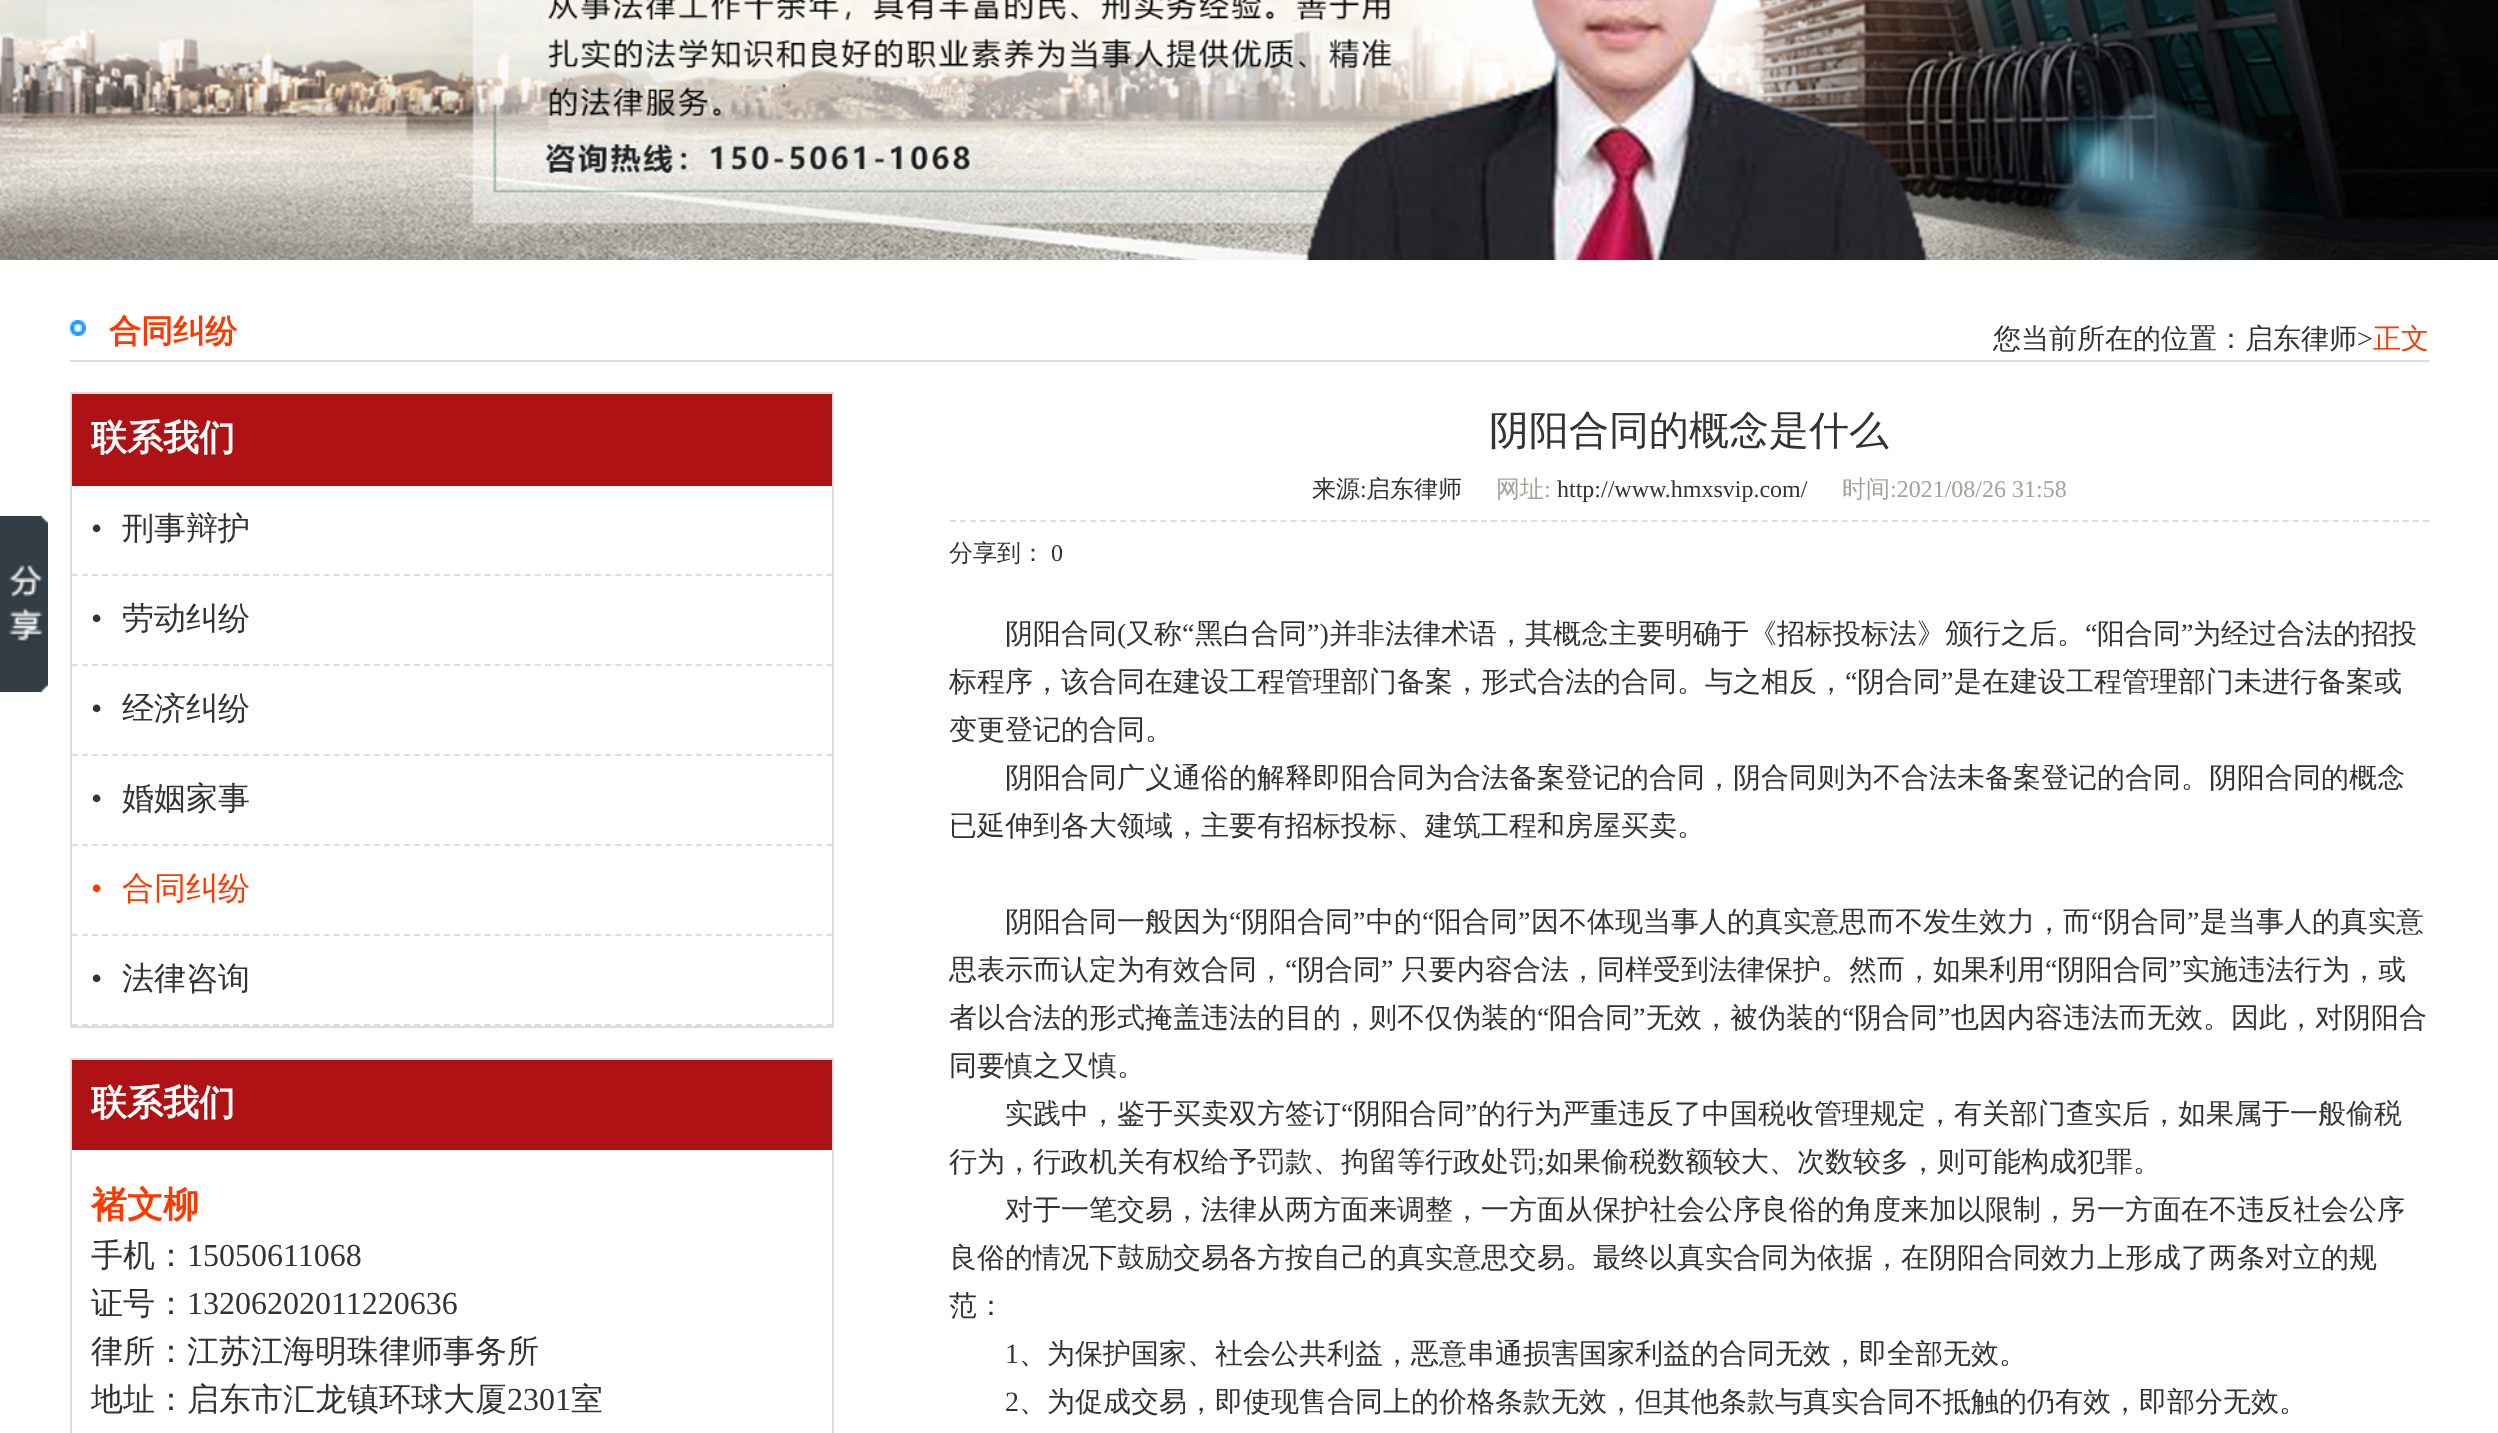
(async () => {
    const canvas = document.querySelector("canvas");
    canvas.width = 2498;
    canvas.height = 1433;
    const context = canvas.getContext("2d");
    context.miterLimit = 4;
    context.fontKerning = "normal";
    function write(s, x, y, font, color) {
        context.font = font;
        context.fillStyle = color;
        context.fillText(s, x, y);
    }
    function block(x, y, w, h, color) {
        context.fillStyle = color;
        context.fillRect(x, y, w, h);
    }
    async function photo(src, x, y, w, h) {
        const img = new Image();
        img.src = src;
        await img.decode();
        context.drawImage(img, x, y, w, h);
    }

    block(0, 0, 2498, 1433, "rgb(255, 255, 255)");
    await photo("media/1.png", 0, 0, 2498, 260);
    await photo("media/2.png", 0, 516, 48, 176);
    block(70, 360, 2360, 2, "rgb(221, 221, 221)");
    await photo("media/3.png", 70, 320, 16, 16);
    write("合同纠纷", 109, 342, "bold 32px WenQuanYi Zen Hei", "rgb(255, 56, 0)");
    write("您当前所在的位置：启东律师", 1993, 348, "500 28px WenQuanYi Zen Hei", "rgb(51, 51, 51)");
    write(">", 2357, 348, "28px Liberation Serif", "rgb(51, 51, 51)");
    write("正文", 2373, 348, "500 28px WenQuanYi Zen Hei", "rgb(255, 56, 0)");
    context.strokeStyle = "rgb(221, 221, 221)";
    context.lineWidth = 2;
    context.strokeRect(71, 393, 762, 634);
    block(72, 394, 760, 92, "rgb(174, 18, 20)");
    write("联系我们", 91, 450, "bold 36px WenQuanYi Zen Hei", "rgb(255, 255, 255)");
    context.beginPath();
    context.moveTo(72, 575);
    context.lineTo(832, 575);
    context.setLineDash([6, 4.06]);
    context.stroke();
    write("•", 91, 539, "32px Liberation Serif", "rgb(51, 51, 51)");
    write("刑事辩护", 122, 539, "500 32px WenQuanYi Zen Hei", "rgb(51, 51, 51)");
    context.beginPath();
    context.moveTo(72, 665);
    context.lineTo(832, 665);
    context.stroke();
    write("•", 91, 629, "32px Liberation Serif", "rgb(51, 51, 51)");
    write("劳动纠纷", 122, 629, "500 32px WenQuanYi Zen Hei", "rgb(51, 51, 51)");
    context.beginPath();
    context.moveTo(72, 755);
    context.lineTo(832, 755);
    context.stroke();
    write("•", 91, 719, "32px Liberation Serif", "rgb(51, 51, 51)");
    write("经济纠纷", 122, 719, "500 32px WenQuanYi Zen Hei", "rgb(51, 51, 51)");
    context.beginPath();
    context.moveTo(72, 845);
    context.lineTo(832, 845);
    context.stroke();
    write("•", 91, 809, "32px Liberation Serif", "rgb(51, 51, 51)");
    write("婚姻家事", 122, 809, "500 32px WenQuanYi Zen Hei", "rgb(51, 51, 51)");
    context.beginPath();
    context.moveTo(72, 935);
    context.lineTo(832, 935);
    context.stroke();
    write("•", 91, 899, "32px Liberation Serif", "rgb(255, 56, 0)");
    write("合同纠纷", 122, 899, "500 32px WenQuanYi Zen Hei", "rgb(255, 56, 0)");
    context.beginPath();
    context.moveTo(72, 1025);
    context.lineTo(832, 1025);
    context.stroke();
    write("•", 91, 989, "32px Liberation Serif", "rgb(51, 51, 51)");
    write("法律咨询", 122, 989, "500 32px WenQuanYi Zen Hei", "rgb(51, 51, 51)");
    context.setLineDash([]);
    context.strokeRect(71, 1059, 762, 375);
    block(72, 1060, 760, 90, "rgb(174, 18, 20)");
    write("联系我们", 91, 1115, "bold 36px WenQuanYi Zen Hei", "rgb(255, 255, 255)");
    write("褚文柳", 91, 1217, "bold 36px WenQuanYi Zen Hei", "rgb(255, 56, 0)");
    write("手机：", 91, 1266, "500 32px WenQuanYi Zen Hei", "rgb(51, 51, 51)");
    write("15050611068", 187, 1266, "32px Liberation Serif", "rgb(51, 51, 51)");
    write("证号：", 91, 1314, "500 32px WenQuanYi Zen Hei", "rgb(51, 51, 51)");
    write("13206202011220636", 187, 1314, "32px Liberation Serif", "rgb(51, 51, 51)");
    write("律所：江苏江海明珠律师事务所", 91, 1362, "500 32px WenQuanYi Zen Hei", "rgb(51, 51, 51)");
    write("地址：启东市汇龙镇环球大厦", 91, 1410, "500 32px WenQuanYi Zen Hei", "rgb(51, 51, 51)");
    write("2301", 507, 1410, "32px Liberation Serif", "rgb(51, 51, 51)");
    write("室", 571, 1410, "500 32px WenQuanYi Zen Hei", "rgb(51, 51, 51)");
    write("阴阳合同的概念是什么", 1489, 444, "500 40px WenQuanYi Zen Hei", "rgb(51, 51, 51)");
    context.beginPath();
    context.moveTo(950, 521);
    context.lineTo(2430, 521);
    context.setLineDash([6, 4.02]);
    context.stroke();
    write("来源", 1312, 497, "500 24px WenQuanYi Zen Hei", "rgb(51, 51, 51)");
    write(":", 1360, 497, "24px Liberation Serif", "rgb(51, 51, 51)");
    write("启东律师", 1366, 497, "500 24px WenQuanYi Zen Hei", "rgb(51, 51, 51)");
    write("网址", 1496, 497, "500 24px WenQuanYi Zen Hei", "rgb(165, 162, 152)");
    write(":", 1544, 497, "24px Liberation Serif", "rgb(165, 162, 152)");
    write("http://www.hmxsvip.com/", 1557, 497, "24px Liberation Serif", "rgb(51, 51, 51)");
    write("时间", 1842, 497, "500 24px WenQuanYi Zen Hei", "rgb(165, 162, 152)");
    write(":2021/08/26 31:58", 1890, 497, "24px Liberation Serif", "rgb(165, 162, 152)");
    write("分享到：", 949, 561, "500 24px WenQuanYi Zen Hei", "rgb(51, 51, 51)");
    write("0", 1051, 561, "24px Liberation Serif", "rgb(51, 51, 51)");
    write("阴阳合同", 1005, 643, "500 28px WenQuanYi Zen Hei", "rgb(51, 51, 51)");
    write("(", 1117, 643, "28px Liberation Serif", "rgb(51, 51, 51)");
    write("又称", 1126, 643, "500 28px WenQuanYi Zen Hei", "rgb(51, 51, 51)");
    write("“", 1182, 643, "28px Liberation Serif", "rgb(51, 51, 51)");
    write("黑白合同", 1195, 643, "500 28px WenQuanYi Zen Hei", "rgb(51, 51, 51)");
    write("”)", 1307, 643, "28px Liberation Serif", "rgb(51, 51, 51)");
    write("并非法律术语，其概念主要明确于《招标投标法》颁行之后。", 1329, 643, "500 28px WenQuanYi Zen Hei", "rgb(51, 51, 51)");
    write("“", 2085, 643, "28px Liberation Serif", "rgb(51, 51, 51)");
    write("阳合同", 2097, 643, "500 28px WenQuanYi Zen Hei", "rgb(51, 51, 51)");
    write("”", 2181, 643, "28px Liberation Serif", "rgb(51, 51, 51)");
    write("为经过合法的招投", 2193, 643, "500 28px WenQuanYi Zen Hei", "rgb(51, 51, 51)");
    write("标程序，该合同在建设工程管理部门备案，形式合法的合同。与之相反，", 949, 691, "500 28px WenQuanYi Zen Hei", "rgb(51, 51, 51)");
    write("“", 1845, 691, "28px Liberation Serif", "rgb(51, 51, 51)");
    write("阴合同", 1857, 691, "500 28px WenQuanYi Zen Hei", "rgb(51, 51, 51)");
    write("”", 1941, 691, "28px Liberation Serif", "rgb(51, 51, 51)");
    write("是在建设工程管理部门未进行备案或", 1954, 691, "500 28px WenQuanYi Zen Hei", "rgb(51, 51, 51)");
    write("变更登记的合同。", 949, 739, "500 28px WenQuanYi Zen Hei", "rgb(51, 51, 51)");
    write("阴阳合同广义通俗的解释即阳合同为合法备案登记的合同，阴合同则为不合法未备案登记的合同。阴阳合同的概念", 1005, 787, "500 28px WenQuanYi Zen Hei", "rgb(51, 51, 51)");
    write("已延伸到各大领域，主要有招标投标、建筑工程和房屋买卖。", 949, 835, "500 28px WenQuanYi Zen Hei", "rgb(51, 51, 51)");
    write("阴阳合同一般因为", 1005, 931, "500 28px WenQuanYi Zen Hei", "rgb(51, 51, 51)");
    write("“", 1229, 931, "28px Liberation Serif", "rgb(51, 51, 51)");
    write("阴阳合同", 1241, 931, "500 28px WenQuanYi Zen Hei", "rgb(51, 51, 51)");
    write("”", 1353, 931, "28px Liberation Serif", "rgb(51, 51, 51)");
    write("中的", 1366, 931, "500 28px WenQuanYi Zen Hei", "rgb(51, 51, 51)");
    write("“", 1422, 931, "28px Liberation Serif", "rgb(51, 51, 51)");
    write("阳合同", 1434, 931, "500 28px WenQuanYi Zen Hei", "rgb(51, 51, 51)");
    write("”", 1518, 931, "28px Liberation Serif", "rgb(51, 51, 51)");
    write("因不体现当事人的真实意思而不发生效力，而", 1531, 931, "500 28px WenQuanYi Zen Hei", "rgb(51, 51, 51)");
    write("“", 2091, 931, "28px Liberation Serif", "rgb(51, 51, 51)");
    write("阴合同", 2103, 931, "500 28px WenQuanYi Zen Hei", "rgb(51, 51, 51)");
    write("”", 2187, 931, "28px Liberation Serif", "rgb(51, 51, 51)");
    write("是当事人的真实意", 2200, 931, "500 28px WenQuanYi Zen Hei", "rgb(51, 51, 51)");
    write("思表示而认定为有效合同，", 949, 979, "500 28px WenQuanYi Zen Hei", "rgb(51, 51, 51)");
    write("“", 1285, 979, "28px Liberation Serif", "rgb(51, 51, 51)");
    write("阴合同", 1297, 979, "500 28px WenQuanYi Zen Hei", "rgb(51, 51, 51)");
    write("”", 1381, 979, "28px Liberation Serif", "rgb(51, 51, 51)");
    write("只要内容合法，同样受到法律保护。然而，如果利用", 1401, 979, "500 28px WenQuanYi Zen Hei", "rgb(51, 51, 51)");
    write("“", 2045, 979, "28px Liberation Serif", "rgb(51, 51, 51)");
    write("阴阳合同", 2057, 979, "500 28px WenQuanYi Zen Hei", "rgb(51, 51, 51)");
    write("”", 2169, 979, "28px Liberation Serif", "rgb(51, 51, 51)");
    write("实施违法行为，或", 2182, 979, "500 28px WenQuanYi Zen Hei", "rgb(51, 51, 51)");
    write("者以合法的形式掩盖违法的目的，则不仅伪装的", 949, 1027, "500 28px WenQuanYi Zen Hei", "rgb(51, 51, 51)");
    write("“", 1537, 1027, "28px Liberation Serif", "rgb(51, 51, 51)");
    write("阳合同", 1549, 1027, "500 28px WenQuanYi Zen Hei", "rgb(51, 51, 51)");
    write("”", 1633, 1027, "28px Liberation Serif", "rgb(51, 51, 51)");
    write("无效，被伪装的", 1646, 1027, "500 28px WenQuanYi Zen Hei", "rgb(51, 51, 51)");
    write("“", 1842, 1027, "28px Liberation Serif", "rgb(51, 51, 51)");
    write("阴合同", 1854, 1027, "500 28px WenQuanYi Zen Hei", "rgb(51, 51, 51)");
    write("”", 1938, 1027, "28px Liberation Serif", "rgb(51, 51, 51)");
    write("也因内容违法而无效。因此，对阴阳合", 1951, 1027, "500 28px WenQuanYi Zen Hei", "rgb(51, 51, 51)");
    write("同要慎之又慎。", 949, 1075, "500 28px WenQuanYi Zen Hei", "rgb(51, 51, 51)");
    write("实践中，鉴于买卖双方签订", 1005, 1123, "500 28px WenQuanYi Zen Hei", "rgb(51, 51, 51)");
    write("“", 1341, 1123, "28px Liberation Serif", "rgb(51, 51, 51)");
    write("阴阳合同", 1353, 1123, "500 28px WenQuanYi Zen Hei", "rgb(51, 51, 51)");
    write("”", 1465, 1123, "28px Liberation Serif", "rgb(51, 51, 51)");
    write("的行为严重违反了中国税收管理规定，有关部门查实后，如果属于一般偷税", 1478, 1123, "500 28px WenQuanYi Zen Hei", "rgb(51, 51, 51)");
    write("行为，行政机关有权给予罚款、拘留等行政处罚", 949, 1171, "500 28px WenQuanYi Zen Hei", "rgb(51, 51, 51)");
    write(";", 1537, 1171, "28px Liberation Serif", "rgb(51, 51, 51)");
    write("如果偷税数额较大、次数较多，则可能构成犯罪。", 1545, 1171, "500 28px WenQuanYi Zen Hei", "rgb(51, 51, 51)");
    write("对于一笔交易，法律从两方面来调整，一方面从保护社会公序良俗的角度来加以限制，另一方面在不违反社会公序", 1005, 1219, "500 28px WenQuanYi Zen Hei", "rgb(51, 51, 51)");
    write("良俗的情况下鼓励交易各方按自己的真实意思交易。最终以真实合同为依据，在阴阳合同效力上形成了两条对立的规", 949, 1267, "500 28px WenQuanYi Zen Hei", "rgb(51, 51, 51)");
    write("范：", 949, 1315, "500 28px WenQuanYi Zen Hei", "rgb(51, 51, 51)");
    write("1", 1005, 1363, "28px Liberation Serif", "rgb(51, 51, 51)");
    write("、为保护国家、社会公共利益，恶意串通损害国家利益的合同无效，即全部无效。", 1019, 1363, "500 28px WenQuanYi Zen Hei", "rgb(51, 51, 51)");
    write("2", 1005, 1411, "28px Liberation Serif", "rgb(51, 51, 51)");
    write("、为促成交易，即使现售合同上的价格条款无效，但其他条款与真实合同不抵触的仍有效，即部分无效。", 1019, 1411, "500 28px WenQuanYi Zen Hei", "rgb(51, 51, 51)");
})();
